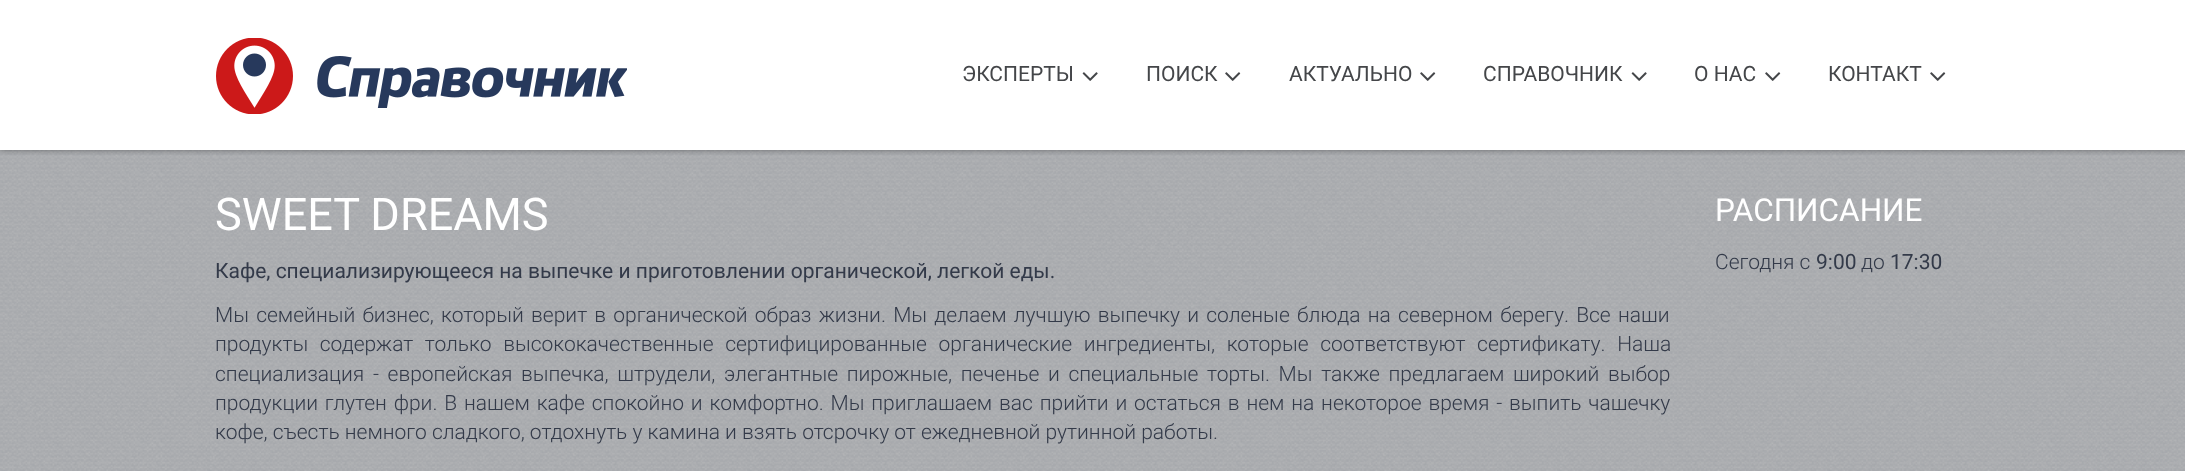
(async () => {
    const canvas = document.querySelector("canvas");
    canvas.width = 2185;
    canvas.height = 471;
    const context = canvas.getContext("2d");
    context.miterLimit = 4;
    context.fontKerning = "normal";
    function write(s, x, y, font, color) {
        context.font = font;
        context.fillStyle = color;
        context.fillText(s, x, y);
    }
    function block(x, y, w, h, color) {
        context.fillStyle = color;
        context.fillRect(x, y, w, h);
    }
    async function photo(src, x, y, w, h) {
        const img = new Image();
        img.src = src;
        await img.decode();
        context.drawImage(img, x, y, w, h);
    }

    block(0, 0, 2185, 471, "rgb(255, 255, 255)");
    block(0, 150, 2185, 321, "rgb(161, 164, 169)");
    await photo("media/4.png", 0, 150, 2185, 321);
    context.save();
    context.beginPath();
    context.rect(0, 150, 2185, 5);
    context.clip();
    context.fillStyle = "rgba(0, 0, 0, 0.4)";
    context.filter = "blur(3px)";
    context.beginPath();
    context.rect(0, 0, 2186, 150);
    context.fill();
    context.filter = "none";
    context.restore();
    await photo("media/1.png", 216, 38, 411, 76);
    write("ЭКСПЕРТЫ", 962, 81, "21px Roboto", "rgb(68, 70, 73)");
    await photo("media/2.png", 1082, 72, 16, 9);
    write("ПОИСК", 1146, 81, "21px Roboto", "rgb(68, 70, 73)");
    await photo("media/3.png", 1225, 72, 16, 9);
    write("АКТУАЛЬНО", 1289, 81, "21px Roboto", "rgb(68, 70, 73)");
    await photo("media/3.png", 1420, 72, 16, 9);
    write("CПРАВОЧНИК", 1483, 81, "21px Roboto", "rgb(68, 70, 73)");
    await photo("media/2.png", 1631, 72, 16, 9);
    write("О НАС", 1694, 81, "21px Roboto", "rgb(68, 70, 73)");
    await photo("media/3.png", 1765, 72, 16, 9);
    write("КОНТАКТ", 1828, 81, "21px Roboto", "rgb(68, 70, 73)");
    await photo("media/3.png", 1930, 72, 16, 9);
    write("SWEET DREAMS", 215, 230, "45px Roboto", "rgb(255, 255, 255)");
    write("Кафе, специализирующееся на выпечке и приготовлении органической, легкой еды.", 215, 278, "21px Roboto", "rgb(51, 58, 73)");
    context.wordSpacing = "2.1px";
    write("Мы семейный бизнес, который верит в органической образ жизни. Мы делаем лучшую выпечку и соленые блюда на северном берегу. Все наши", 215, 322, "300 21px Roboto", "rgb(51, 58, 73)");
    context.wordSpacing = "6.5px";
    write("продукты содержат только высококачественные сертифицированные органические ингредиенты, которые соответствуют сертификату. Наша", 215, 351, "300 21px Roboto", "rgb(51, 58, 73)");
    context.wordSpacing = "3.5px";
    write("специализация - европейская выпечка, штрудели, элегантные пирожные, печенье и специальные торты. Мы также предлагаем широкий выбор", 215, 381, "300 21px Roboto", "rgb(51, 58, 73)");
    context.wordSpacing = "1.7px";
    write("продукции глутен фри. В нашем кафе спокойно и комфортно. Мы приглашаем вас прийти и остаться в нем на некоторое время - выпить чашечку", 215, 410, "300 21px Roboto", "rgb(51, 58, 73)");
    context.wordSpacing = "0px";
    write("кофе, съесть немного сладкого, отдохнуть у камина и взять отсрочку от ежедневной рутинной работы.", 215, 439, "300 21px Roboto", "rgb(51, 58, 73)");
    write("РАСПИСАНИЕ", 1715, 221, "31.5px Roboto", "rgb(255, 255, 255)");
    write("Сегодня с", 1715, 269, "300 21px Roboto", "rgb(51, 58, 73)");
    write("9:00", 1816, 269, "21px Roboto", "rgb(51, 58, 73)");
    write("до", 1861, 269, "300 21px Roboto", "rgb(51, 58, 73)");
    write("17:30", 1890, 269, "21px Roboto", "rgb(51, 58, 73)");
})();
